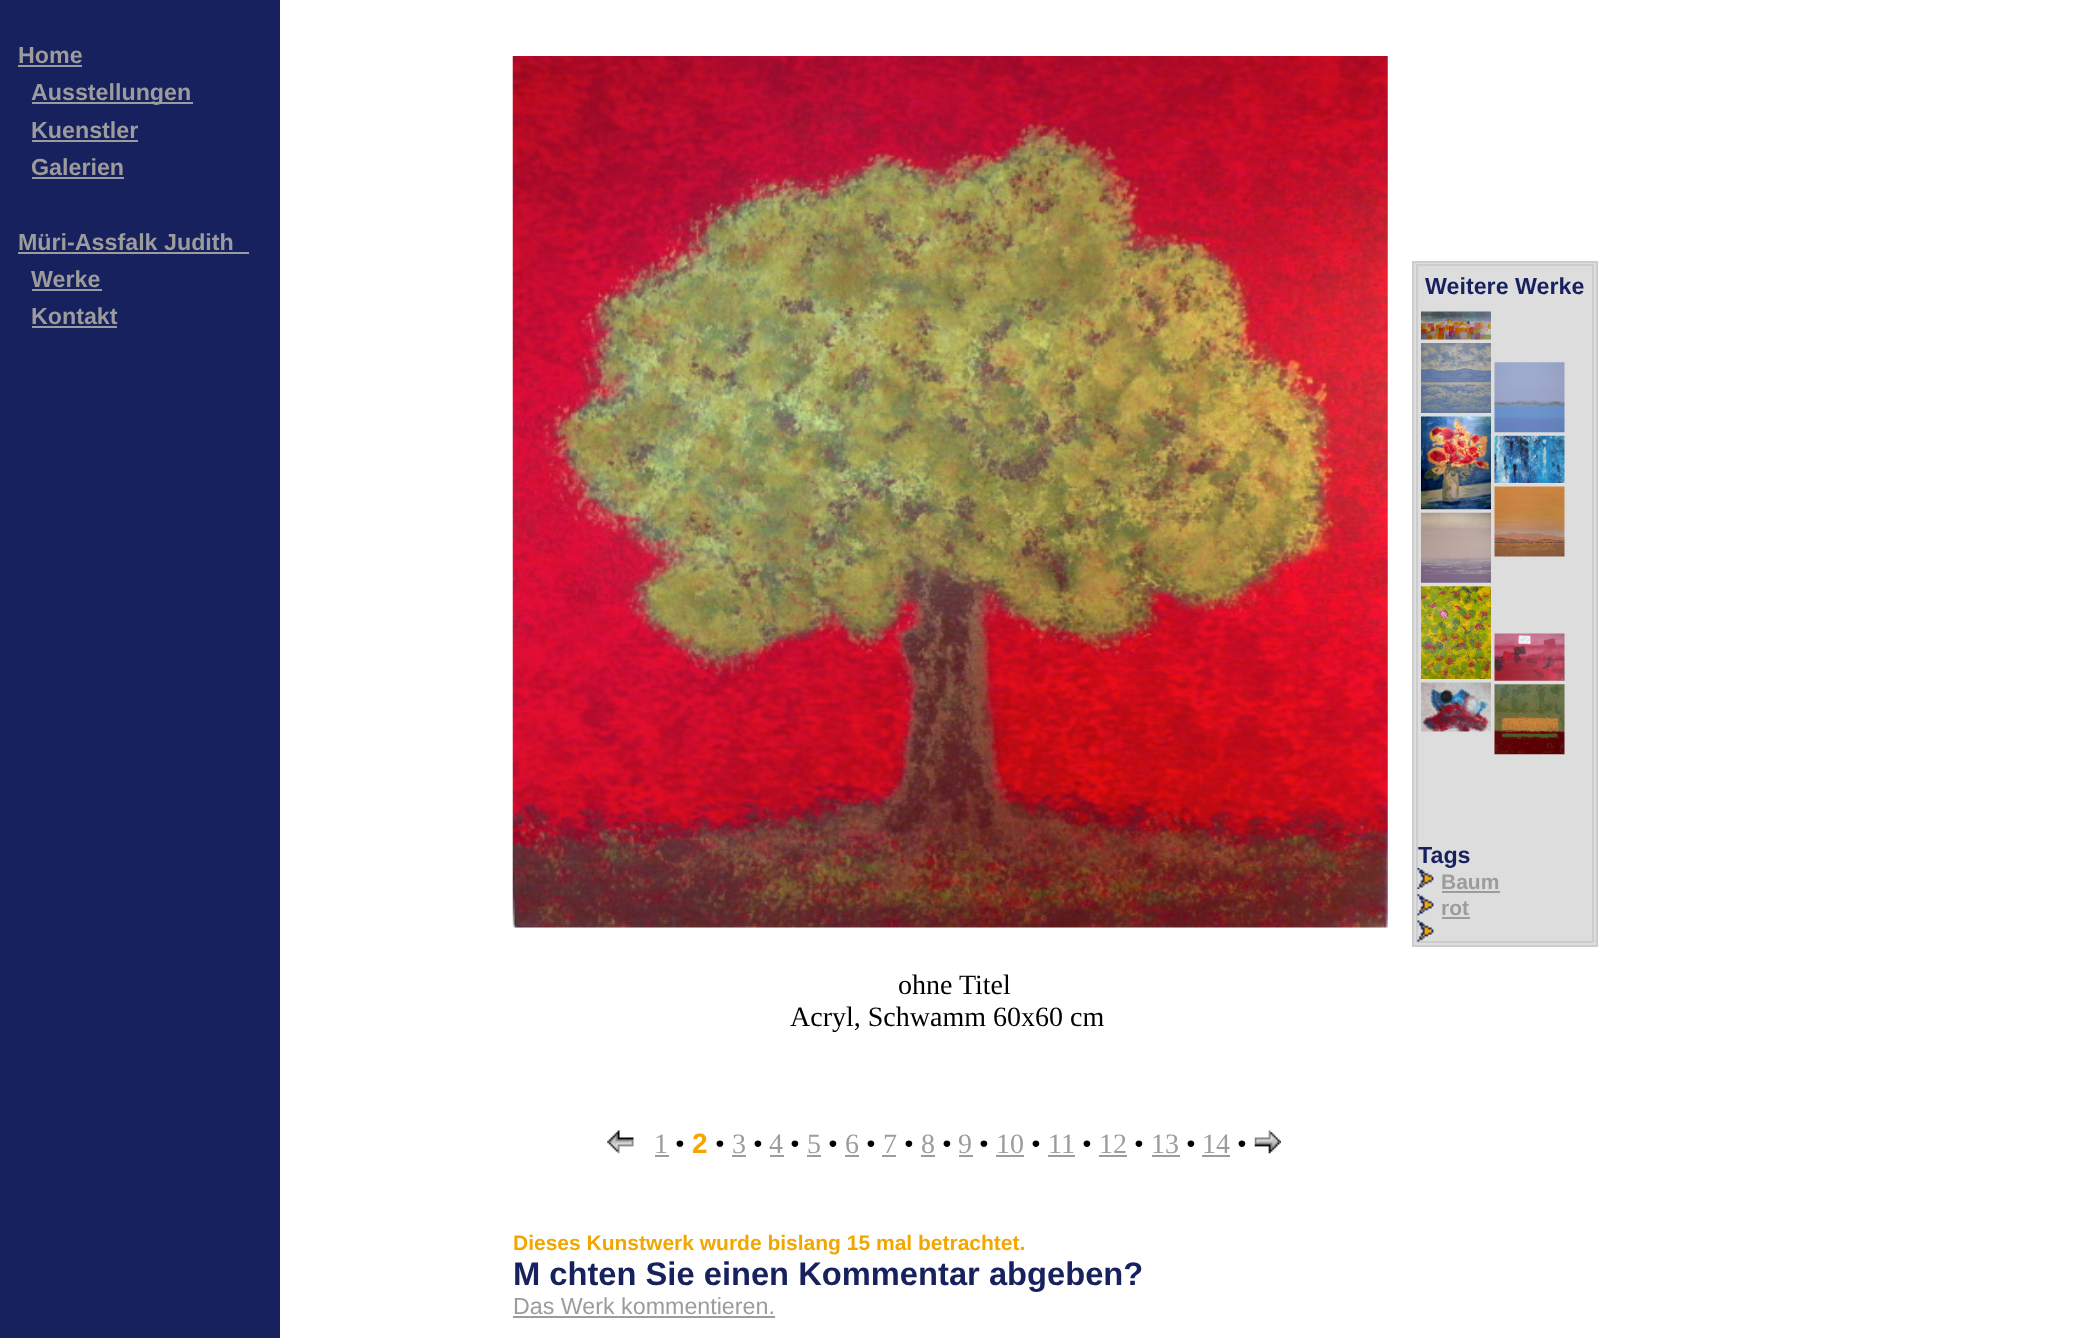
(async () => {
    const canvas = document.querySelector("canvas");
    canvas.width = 2094;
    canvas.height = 1338;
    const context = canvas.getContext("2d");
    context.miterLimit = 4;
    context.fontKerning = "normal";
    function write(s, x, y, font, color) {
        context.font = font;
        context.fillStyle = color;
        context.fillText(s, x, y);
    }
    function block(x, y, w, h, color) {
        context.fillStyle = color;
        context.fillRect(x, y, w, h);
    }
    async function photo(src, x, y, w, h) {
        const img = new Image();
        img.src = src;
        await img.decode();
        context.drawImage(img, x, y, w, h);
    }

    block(0, 0, 2094, 1338, "rgb(255, 255, 255)");
    block(0, 0, 280, 1338, "rgb(23, 33, 94)");
    write("Home", 18, 63, "bold 23.25px Liberation Sans", "rgb(156, 156, 156)");
    block(18, 65, 64, 2, "rgb(156, 156, 156)");
    block(32, 102, 161, 2, "rgb(156, 156, 156)");
    write("Ausstellungen", 31, 100, "bold 23.25px Liberation Sans", "rgb(156, 156, 156)");
    write("Kuenstler", 31, 138, "bold 23.25px Liberation Sans", "rgb(156, 156, 156)");
    block(32, 140, 106, 2, "rgb(156, 156, 156)");
    write("Galerien", 31, 175, "bold 23.25px Liberation Sans", "rgb(156, 156, 156)");
    block(32, 177, 92, 2, "rgb(156, 156, 156)");
    write("Müri-Assfalk Judith", 18, 250, "bold 23.25px Liberation Sans", "rgb(156, 156, 156)");
    block(18, 252, 231, 2, "rgb(156, 156, 156)");
    write("Werke", 31, 287, "bold 23.25px Liberation Sans", "rgb(156, 156, 156)");
    block(32, 289, 70, 2, "rgb(156, 156, 156)");
    write("Kontakt", 31, 324, "bold 23.25px Liberation Sans", "rgb(156, 156, 156)");
    block(32, 326, 85, 2, "rgb(156, 156, 156)");
    context.fillStyle = "rgb(221, 221, 221)";
    context.beginPath();
    context.rect(1413, 262, 184, 684);
    context.fill();
    context.strokeStyle = "rgb(204, 204, 204)";
    context.lineWidth = 2;
    context.stroke();
    context.strokeRect(1417, 265, 176, 677);
    write("Weitere Werke", 1425, 294, "bold 23.25px Liberation Sans", "rgb(23, 33, 94)");
    await photo("media/1.png", 1421, 311, 70, 29);
    await photo("media/2.png", 1421, 343, 70, 70);
    await photo("media/3.png", 1421, 416, 70, 94);
    await photo("media/4.png", 1421, 512, 70, 71);
    await photo("media/5.png", 1421, 586, 70, 93);
    await photo("media/6.png", 1421, 682, 70, 50);
    await photo("media/7.png", 1494, 362, 71, 71);
    await photo("media/8.png", 1494, 435, 71, 48);
    await photo("media/9.png", 1494, 486, 71, 71);
    await photo("media/10.png", 1494, 633, 71, 48);
    await photo("media/11.png", 1494, 684, 71, 71);
    write("Tags", 1418, 863, "bold 23.25px Liberation Sans", "rgb(23, 33, 94)");
    await photo("media/12.png", 1417, 868, 17, 21);
    write("Baum", 1441, 889, "bold 21px Liberation Sans", "rgb(156, 156, 156)");
    block(1442, 891, 58, 2, "rgb(156, 156, 156)");
    await photo("media/13.png", 1417, 894, 17, 22);
    write("rot", 1441, 915, "bold 21px Liberation Sans", "rgb(156, 156, 156)");
    block(1442, 917, 28, 2, "rgb(156, 156, 156)");
    await photo("media/14.png", 1417, 920, 17, 22);
    await photo("media/15.png", 512, 56, 876, 872);
    write("ohne Titel", 898, 994, "28px Liberation Serif", "rgb(0, 0, 0)");
    write("Acryl, Schwamm 60x60 cm", 790, 1026, "28px Liberation Serif", "rgb(0, 0, 0)");
    await photo("media/16.png", 607, 1130, 27, 24);
    write("1", 654, 1153, "28px Liberation Serif", "rgb(156, 156, 156)");
    block(655, 1155, 14, 2, "rgb(156, 156, 156)");
    write("•", 675, 1153, "28px Liberation Serif", "rgb(0, 0, 0)");
    write("2", 692, 1153, "bold 28px Liberation Sans", "rgb(243, 166, 0)");
    write("•", 715, 1153, "28px Liberation Serif", "rgb(0, 0, 0)");
    write("3", 732, 1153, "28px Liberation Serif", "rgb(156, 156, 156)");
    block(732, 1155, 14, 2, "rgb(156, 156, 156)");
    write("•", 753, 1153, "28px Liberation Serif", "rgb(0, 0, 0)");
    write("4", 769, 1153, "28px Liberation Serif", "rgb(156, 156, 156)");
    block(770, 1155, 14, 2, "rgb(156, 156, 156)");
    write("•", 790, 1153, "28px Liberation Serif", "rgb(0, 0, 0)");
    write("5", 807, 1153, "28px Liberation Serif", "rgb(156, 156, 156)");
    block(807, 1155, 14, 2, "rgb(156, 156, 156)");
    write("•", 828, 1153, "28px Liberation Serif", "rgb(0, 0, 0)");
    write("6", 845, 1153, "28px Liberation Serif", "rgb(156, 156, 156)");
    block(845, 1155, 14, 2, "rgb(156, 156, 156)");
    write("•", 866, 1153, "28px Liberation Serif", "rgb(0, 0, 0)");
    write("7", 883, 1153, "28px Liberation Serif", "rgb(156, 156, 156)");
    block(882, 1155, 14, 2, "rgb(156, 156, 156)");
    write("•", 904, 1153, "28px Liberation Serif", "rgb(0, 0, 0)");
    write("8", 921, 1153, "28px Liberation Serif", "rgb(156, 156, 156)");
    block(921, 1155, 14, 2, "rgb(156, 156, 156)");
    write("•", 942, 1153, "28px Liberation Serif", "rgb(0, 0, 0)");
    write("9", 958, 1153, "28px Liberation Serif", "rgb(156, 156, 156)");
    block(959, 1155, 14, 2, "rgb(156, 156, 156)");
    write("•", 979, 1153, "28px Liberation Serif", "rgb(0, 0, 0)");
    write("10", 996, 1153, "28px Liberation Serif", "rgb(156, 156, 156)");
    block(996, 1155, 28, 2, "rgb(156, 156, 156)");
    write("•", 1031, 1153, "28px Liberation Serif", "rgb(0, 0, 0)");
    write("11", 1048, 1153, "28px Liberation Serif", "rgb(156, 156, 156)");
    block(1048, 1155, 27, 2, "rgb(156, 156, 156)");
    write("•", 1082, 1153, "28px Liberation Serif", "rgb(0, 0, 0)");
    write("12", 1099, 1153, "28px Liberation Serif", "rgb(156, 156, 156)");
    block(1099, 1155, 28, 2, "rgb(156, 156, 156)");
    write("•", 1134, 1153, "28px Liberation Serif", "rgb(0, 0, 0)");
    write("13", 1151, 1153, "28px Liberation Serif", "rgb(156, 156, 156)");
    block(1152, 1155, 28, 2, "rgb(156, 156, 156)");
    write("•", 1186, 1153, "28px Liberation Serif", "rgb(0, 0, 0)");
    write("14", 1202, 1153, "28px Liberation Serif", "rgb(156, 156, 156)");
    block(1202, 1155, 28, 2, "rgb(156, 156, 156)");
    write("•", 1237, 1153, "28px Liberation Serif", "rgb(0, 0, 0)");
    await photo("media/17.png", 1254, 1130, 27, 24);
    write("Dieses Kunstwerk wurde bislang 15 mal betrachtet.", 513, 1250, "bold 21px Liberation Sans", "rgb(243, 166, 0)");
    write("M chten Sie einen Kommentar abgeben?", 513, 1285, "bold 32.7px Liberation Sans", "rgb(23, 33, 94)");
    write("Das Werk kommentieren.", 513, 1314, "23.25px Liberation Sans", "rgb(156, 156, 156)");
    block(513, 1316, 262, 2, "rgb(156, 156, 156)");
})();
